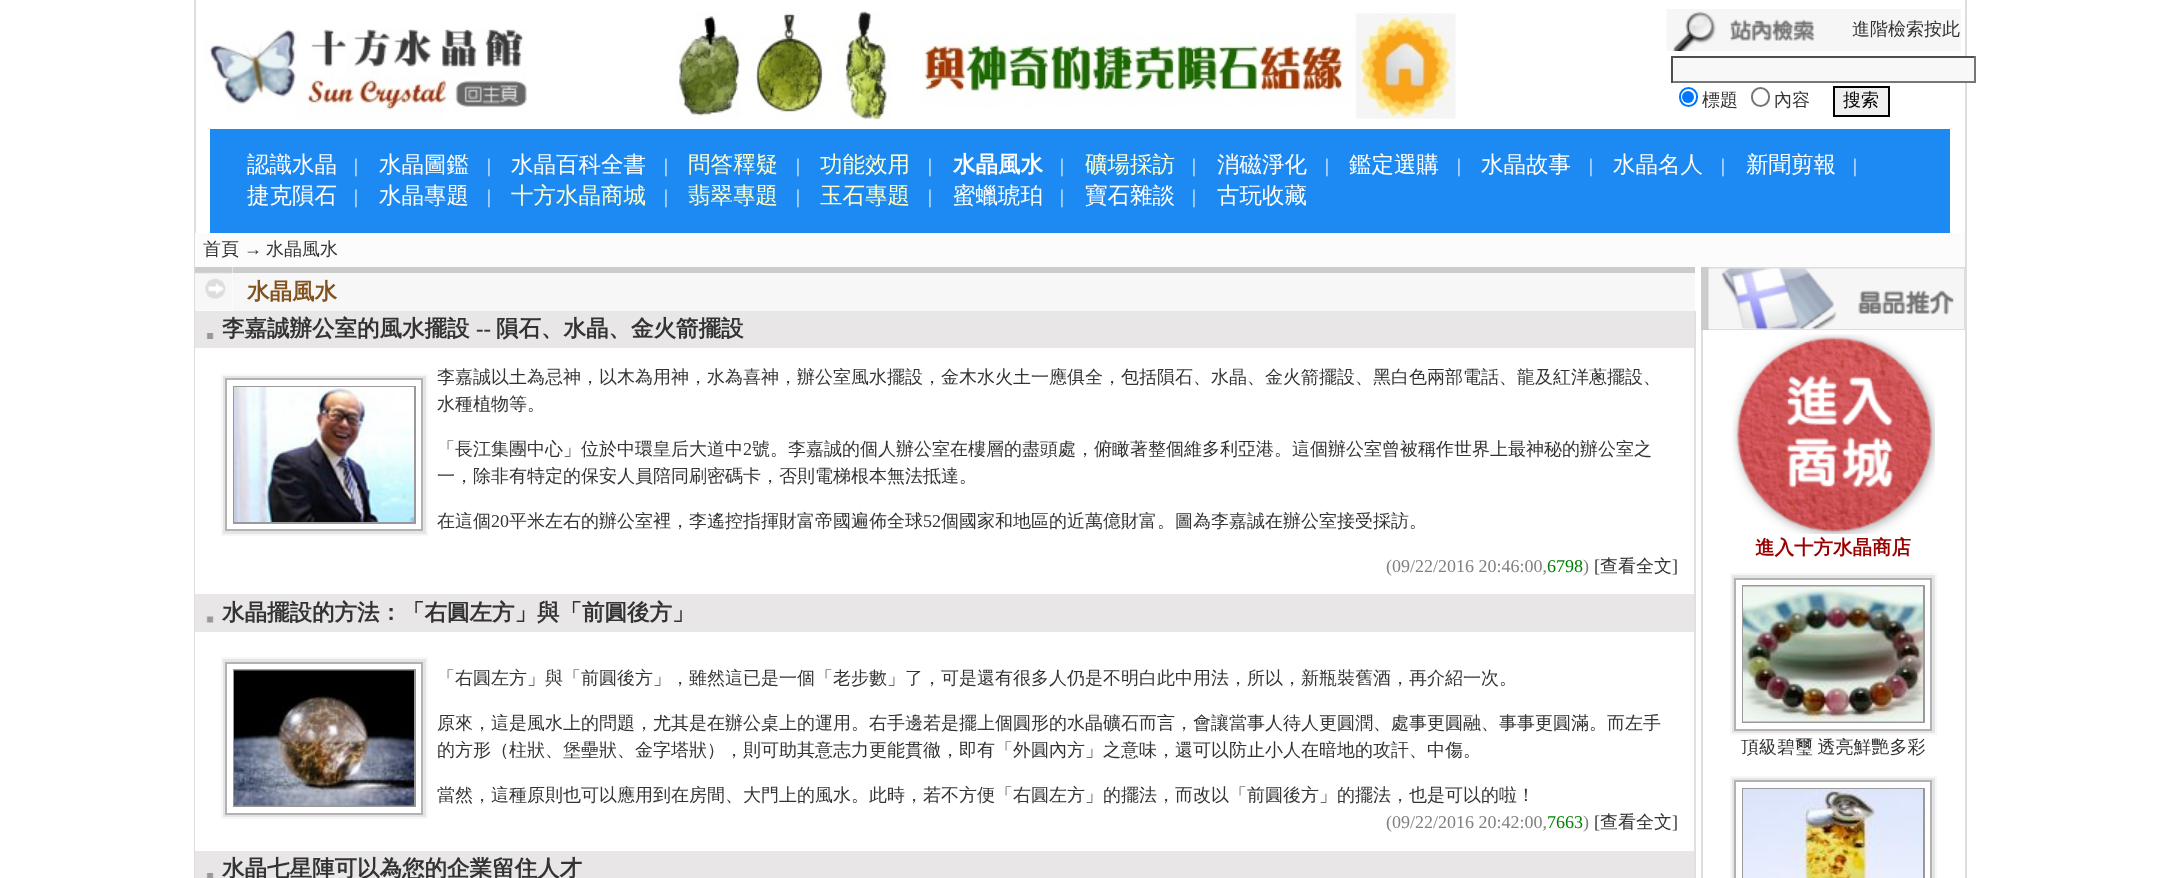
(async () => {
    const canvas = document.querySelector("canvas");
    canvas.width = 2158;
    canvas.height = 878;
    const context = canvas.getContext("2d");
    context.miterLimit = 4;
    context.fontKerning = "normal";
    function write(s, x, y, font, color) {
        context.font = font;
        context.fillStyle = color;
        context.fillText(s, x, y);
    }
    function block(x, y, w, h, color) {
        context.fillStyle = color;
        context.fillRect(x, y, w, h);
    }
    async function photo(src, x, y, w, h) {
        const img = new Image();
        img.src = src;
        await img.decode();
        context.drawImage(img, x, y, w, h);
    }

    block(0, 0, 2158, 878, "rgb(255, 255, 255)");
    block(1965, 0, 2, 878, "rgb(221, 221, 221)");
    block(194, 0, 2, 878, "rgb(221, 221, 221)");
    await photo("media/1.png", 203, 29, 324, 93);
    await photo("media/2.png", 676, 10, 781, 110);
    await photo("media/3.png", 1666, 9, 149, 42);
    block(1815, 9, 146, 42, "rgb(246, 246, 246)");
    write("進階檢索按此", 1852, 35, "500 18px WenQuanYi Zen Hei", "rgb(51, 51, 51)");
    block(1673, 58, 301, 23, "rgb(248, 248, 248)");
    block(1671, 56, 305, 2, "rgb(79, 79, 79)");
    block(1974, 56, 2, 27, "rgb(118, 118, 118)");
    block(1671, 81, 305, 2, "rgb(118, 118, 118)");
    block(1671, 56, 2, 27, "rgb(79, 79, 79)");
    context.beginPath();
    context.roundRect(1680, 88, 17, 18, 8.5);
    context.strokeStyle = "rgb(0, 117, 255)";
    context.lineWidth = 2;
    context.stroke();
    context.fillStyle = "rgb(0, 117, 255)";
    context.beginPath();
    context.arc(1688, 97, 6, 0, Math.PI * 2);
    context.fill();
    write("標題", 1702, 106, "500 18px WenQuanYi Zen Hei", "rgb(51, 51, 51)");
    context.beginPath();
    context.roundRect(1752, 88, 17, 18, 8.5);
    context.strokeStyle = "rgb(118, 118, 118)";
    context.stroke();
    write("內容", 1774, 106, "500 18px WenQuanYi Zen Hei", "rgb(51, 51, 51)");
    context.fillStyle = "rgb(239, 239, 239)";
    context.beginPath();
    context.rect(1834, 87, 55, 29);
    context.fill();
    context.strokeStyle = "rgb(0, 0, 0)";
    context.stroke();
    write("搜索", 1843, 106, "500 18px WenQuanYi Zen Hei", "rgb(0, 0, 0)");
    block(210, 129, 1740, 104, "rgb(29, 138, 243)");
    write("認識水晶", 247, 172, "500 22.5px WenQuanYi Zen Hei", "rgb(255, 255, 255)");
    write("|", 354, 172, "19.5px Liberation Serif", "rgb(255, 255, 255)");
    write("水晶圖鑑", 379, 172, "500 22.5px WenQuanYi Zen Hei", "rgb(255, 255, 255)");
    write("|", 487, 172, "19.5px Liberation Serif", "rgb(255, 255, 255)");
    write("水晶百科全書", 511, 172, "500 22.5px WenQuanYi Zen Hei", "rgb(255, 255, 255)");
    write("|", 664, 172, "19.5px Liberation Serif", "rgb(255, 255, 255)");
    write("問答釋疑", 688, 172, "500 22.5px WenQuanYi Zen Hei", "rgb(255, 255, 204)");
    write("|", 796, 172, "19.5px Liberation Serif", "rgb(255, 255, 255)");
    write("功能效用", 820, 172, "500 22.5px WenQuanYi Zen Hei", "rgb(255, 255, 204)");
    write("|", 928, 172, "19.5px Liberation Serif", "rgb(255, 255, 255)");
    write("水晶風水", 953, 172, "bold 22.5px WenQuanYi Zen Hei", "rgb(255, 255, 255)");
    write("|", 1060, 172, "19.5px Liberation Serif", "rgb(255, 255, 255)");
    write("礦場採訪", 1085, 172, "500 22.5px WenQuanYi Zen Hei", "rgb(255, 255, 204)");
    write("|", 1192, 172, "19.5px Liberation Serif", "rgb(255, 255, 255)");
    write("消磁淨化", 1217, 172, "500 22.5px WenQuanYi Zen Hei", "rgb(255, 255, 255)");
    write("|", 1325, 172, "19.5px Liberation Serif", "rgb(255, 255, 255)");
    write("鑑定選購", 1349, 172, "500 22.5px WenQuanYi Zen Hei", "rgb(255, 255, 255)");
    write("|", 1457, 172, "19.5px Liberation Serif", "rgb(255, 255, 255)");
    write("水晶故事", 1481, 172, "500 22.5px WenQuanYi Zen Hei", "rgb(255, 255, 255)");
    write("|", 1589, 172, "19.5px Liberation Serif", "rgb(255, 255, 255)");
    write("水晶名人", 1613, 172, "500 22.5px WenQuanYi Zen Hei", "rgb(255, 255, 255)");
    write("|", 1721, 172, "19.5px Liberation Serif", "rgb(255, 255, 255)");
    write("新聞剪報", 1746, 172, "500 22.5px WenQuanYi Zen Hei", "rgb(255, 255, 255)");
    write("|", 1853, 172, "19.5px Liberation Serif", "rgb(255, 255, 255)");
    write("捷克隕石", 247, 203, "500 22.5px WenQuanYi Zen Hei", "rgb(255, 255, 255)");
    write("|", 354, 203, "19.5px Liberation Serif", "rgb(255, 255, 255)");
    write("水晶專題", 379, 203, "500 22.5px WenQuanYi Zen Hei", "rgb(255, 255, 255)");
    write("|", 487, 203, "19.5px Liberation Serif", "rgb(255, 255, 255)");
    write("十方水晶商城", 511, 203, "500 22.5px WenQuanYi Zen Hei", "rgb(255, 255, 204)");
    write("|", 664, 203, "19.5px Liberation Serif", "rgb(255, 255, 255)");
    write("翡翠專題", 688, 203, "500 22.5px WenQuanYi Zen Hei", "rgb(255, 255, 204)");
    write("|", 796, 203, "19.5px Liberation Serif", "rgb(255, 255, 255)");
    write("玉石專題", 820, 203, "500 22.5px WenQuanYi Zen Hei", "rgb(255, 255, 204)");
    write("|", 928, 203, "19.5px Liberation Serif", "rgb(255, 255, 255)");
    write("蜜蠟琥珀", 953, 203, "500 22.5px WenQuanYi Zen Hei", "rgb(255, 255, 255)");
    write("|", 1060, 203, "19.5px Liberation Serif", "rgb(255, 255, 255)");
    write("寶石雜談", 1085, 203, "500 22.5px WenQuanYi Zen Hei", "rgb(255, 255, 255)");
    write("|", 1192, 203, "19.5px Liberation Serif", "rgb(255, 255, 255)");
    write("古玩收藏", 1217, 203, "500 22.5px WenQuanYi Zen Hei", "rgb(255, 255, 255)");
    block(195, 233, 1770, 34, "rgb(252, 252, 252)");
    write("首頁", 203, 255, "500 18px WenQuanYi Zen Hei", "rgb(51, 51, 51)");
    write("→", 244, 255, "18px Liberation Serif", "rgb(51, 51, 51)");
    write("水晶風水", 266, 255, "500 18px WenQuanYi Zen Hei", "rgb(51, 51, 51)");
    await photo("media/4.png", 195, 267, 38, 44);
    block(233, 273, 1462, 38, "rgb(247, 247, 247)");
    block(233, 267, 1462, 6, "rgb(204, 204, 204)");
    write("水晶風水", 247, 299, "bold 22.5px WenQuanYi Zen Hei", "rgb(131, 82, 30)");
    block(195, 311, 1499, 37, "rgb(232, 230, 230)");
    write("李嘉誠辦公室的風水擺設", 222, 336, "bold 22.5px WenQuanYi Zen Hei", "rgb(51, 51, 51)");
    write("--", 476, 336, "bold 22.5px Liberation Serif", "rgb(51, 51, 51)");
    write("隕石、水晶、金火箭擺設", 496, 336, "bold 22.5px WenQuanYi Zen Hei", "rgb(51, 51, 51)");
    await photo("media/5.png", 206, 333, 8, 6);
    block(195, 348, 1, 246, "rgb(255, 255, 255)");
    context.fillStyle = "rgb(229, 229, 229)";
    context.beginPath();
    context.rect(222, 375, 205, 160);
    context.fill();
    context.strokeStyle = "rgb(247, 247, 247)";
    context.stroke();
    context.fillStyle = "rgb(255, 255, 255)";
    context.beginPath();
    context.rect(226, 379, 196, 151);
    context.fill();
    context.strokeStyle = "rgb(178, 178, 178)";
    context.stroke();
    context.strokeStyle = "rgb(153, 153, 153)";
    context.strokeRect(234, 387, 181, 136);
    await photo("media/6.png", 234, 387, 180, 135);
    write("李嘉誠以土為忌神，以木為用神，水為喜神，辦公室風水擺設，金木水火土一應俱全，包括隕石、水晶、金火箭擺設、黑白色兩部電話、龍及紅洋蔥擺設、", 437, 383, "500 18px WenQuanYi Zen Hei", "rgb(51, 51, 51)");
    write("水種植物等。", 437, 410, "500 18px WenQuanYi Zen Hei", "rgb(51, 51, 51)");
    write("「長江集團中心」位於中環皇后大道中", 437, 455, "500 18px WenQuanYi Zen Hei", "rgb(51, 51, 51)");
    write("2", 743, 455, "18px Liberation Serif", "rgb(51, 51, 51)");
    write("號。李嘉誠的個人辦公室在樓層的盡頭處，俯瞰著整個維多利亞港。這個辦公室曾被稱作世界上最神秘的辦公室之", 752, 455, "500 18px WenQuanYi Zen Hei", "rgb(51, 51, 51)");
    write("一，除非有特定的保安人員陪同刷密碼卡，否則電梯根本無法抵達。", 437, 482, "500 18px WenQuanYi Zen Hei", "rgb(51, 51, 51)");
    write("在這個", 437, 527, "500 18px WenQuanYi Zen Hei", "rgb(51, 51, 51)");
    write("20", 491, 527, "18px Liberation Serif", "rgb(51, 51, 51)");
    write("平米左右的辦公室裡，李遙控指揮財富帝國遍佈全球", 509, 527, "500 18px WenQuanYi Zen Hei", "rgb(51, 51, 51)");
    write("52", 923, 527, "18px Liberation Serif", "rgb(51, 51, 51)");
    write("個國家和地區的近萬億財富。圖為李嘉誠在辦公室接受採訪。", 941, 527, "500 18px WenQuanYi Zen Hei", "rgb(51, 51, 51)");
    write("(09/22/2016 20:46:00,", 1386, 572, "18px Liberation Serif", "rgb(128, 128, 128)");
    write("6798", 1547, 572, "18px Liberation Serif", "rgb(0, 128, 0)");
    write(")", 1583, 572, "18px Liberation Serif", "rgb(128, 128, 128)");
    write("[", 1594, 572, "18px Liberation Serif", "rgb(51, 51, 51)");
    write("查看全文", 1600, 572, "500 18px WenQuanYi Zen Hei", "rgb(51, 51, 51)");
    write("]", 1672, 572, "18px Liberation Serif", "rgb(51, 51, 51)");
    block(195, 594, 1499, 38, "rgb(232, 230, 230)");
    await photo("media/7.png", 206, 616, 8, 7);
    write("水晶擺設的方法：「右圓左方」與「前圓後方」", 222, 620, "bold 22.5px WenQuanYi Zen Hei", "rgb(51, 51, 51)");
    block(195, 632, 1, 219, "rgb(255, 255, 255)");
    context.fillStyle = "rgb(229, 229, 229)";
    context.beginPath();
    context.rect(222, 658, 205, 160);
    context.fill();
    context.strokeStyle = "rgb(247, 247, 247)";
    context.stroke();
    context.fillStyle = "rgb(255, 255, 255)";
    context.beginPath();
    context.rect(226, 663, 196, 151);
    context.fill();
    context.strokeStyle = "rgb(178, 178, 178)";
    context.stroke();
    context.strokeStyle = "rgb(153, 153, 153)";
    context.strokeRect(234, 670, 181, 136);
    await photo("media/8.png", 234, 670, 180, 136);
    write("「右圓左方」與「前圓後方」，雖然這已是一個「老步數」了，可是還有很多人仍是不明白此中用法，所以，新瓶裝舊酒，再介紹一次。", 437, 684, "500 18px WenQuanYi Zen Hei", "rgb(51, 51, 51)");
    write("原來，這是風水上的問題，尤其是在辦公桌上的運用。右手邊若是擺上個圓形的水晶礦石而言，會讓當事人待人更圓潤、處事更圓融、事事更圓滿。而左手", 437, 729, "500 18px WenQuanYi Zen Hei", "rgb(51, 51, 51)");
    write("的方形（柱狀、堡壘狀、金字塔狀），則可助其意志力更能貫徹，即有「外圓內方」之意味，還可以防止小人在暗地的攻訐、中傷。", 437, 756, "500 18px WenQuanYi Zen Hei", "rgb(51, 51, 51)");
    write("當然，這種原則也可以應用到在房間、大門上的風水。此時，若不方便「右圓左方」的擺法，而改以「前圓後方」的擺法，也是可以的啦！", 437, 801, "500 18px WenQuanYi Zen Hei", "rgb(51, 51, 51)");
    write("(09/22/2016 20:42:00,", 1386, 828, "18px Liberation Serif", "rgb(128, 128, 128)");
    write("7663", 1547, 828, "18px Liberation Serif", "rgb(0, 128, 0)");
    write(")", 1583, 828, "18px Liberation Serif", "rgb(128, 128, 128)");
    write("[", 1594, 828, "18px Liberation Serif", "rgb(51, 51, 51)");
    write("查看全文", 1600, 828, "500 18px WenQuanYi Zen Hei", "rgb(51, 51, 51)");
    write("]", 1672, 828, "18px Liberation Serif", "rgb(51, 51, 51)");
    block(195, 851, 1499, 27, "rgb(232, 230, 230)");
    await photo("media/9.png", 206, 873, 8, 5);
    write("水晶七星陣可以為您的企業留住人才", 222, 876, "bold 22.5px WenQuanYi Zen Hei", "rgb(51, 51, 51)");
    block(1694, 311, 2, 567, "rgb(225, 224, 224)");
    block(1701, 267, 8, 63, "rgb(204, 204, 204)");
    block(1709, 269, 255, 60, "rgb(246, 246, 246)");
    block(1709, 267, 255, 2, "rgb(221, 221, 221)");
    block(1709, 329, 255, 1, "rgb(221, 221, 221)");
    await photo("media/10.png", 1708, 268, 256, 61);
    block(1964, 267, 1, 63, "rgb(221, 221, 221)");
    block(1701, 330, 2, 548, "rgb(221, 221, 221)");
    await photo("media/11.png", 1732, 334, 203, 200);
    write("進入十方水晶商店", 1755, 554, "bold 19.5px WenQuanYi Zen Hei", "rgb(153, 0, 0)");
    context.fillStyle = "rgb(229, 229, 229)";
    context.beginPath();
    context.rect(1731, 574, 205, 160);
    context.fill();
    context.strokeStyle = "rgb(247, 247, 247)";
    context.stroke();
    context.fillStyle = "rgb(255, 255, 255)";
    context.beginPath();
    context.rect(1735, 579, 196, 151);
    context.fill();
    context.strokeStyle = "rgb(178, 178, 178)";
    context.stroke();
    context.strokeStyle = "rgb(153, 153, 153)";
    context.strokeRect(1743, 586, 181, 136);
    await photo("media/12.png", 1743, 586, 180, 136);
    context.wordSpacing = "-1px";
    write("頂級碧璽 透亮鮮艷多彩", 1741, 753, "500 18px WenQuanYi Zen Hei", "rgb(51, 51, 51)");
    context.fillStyle = "rgb(229, 229, 229)";
    context.beginPath();
    context.rect(1731, 777, 205, 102);
    context.fill();
    context.strokeStyle = "rgb(247, 247, 247)";
    context.stroke();
    context.fillStyle = "rgb(255, 255, 255)";
    context.beginPath();
    context.rect(1735, 781, 196, 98);
    context.fill();
    context.strokeStyle = "rgb(178, 178, 178)";
    context.stroke();
    context.strokeStyle = "rgb(153, 153, 153)";
    context.strokeRect(1743, 789, 181, 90);
    await photo("media/13.png", 1743, 789, 180, 89);
})();
